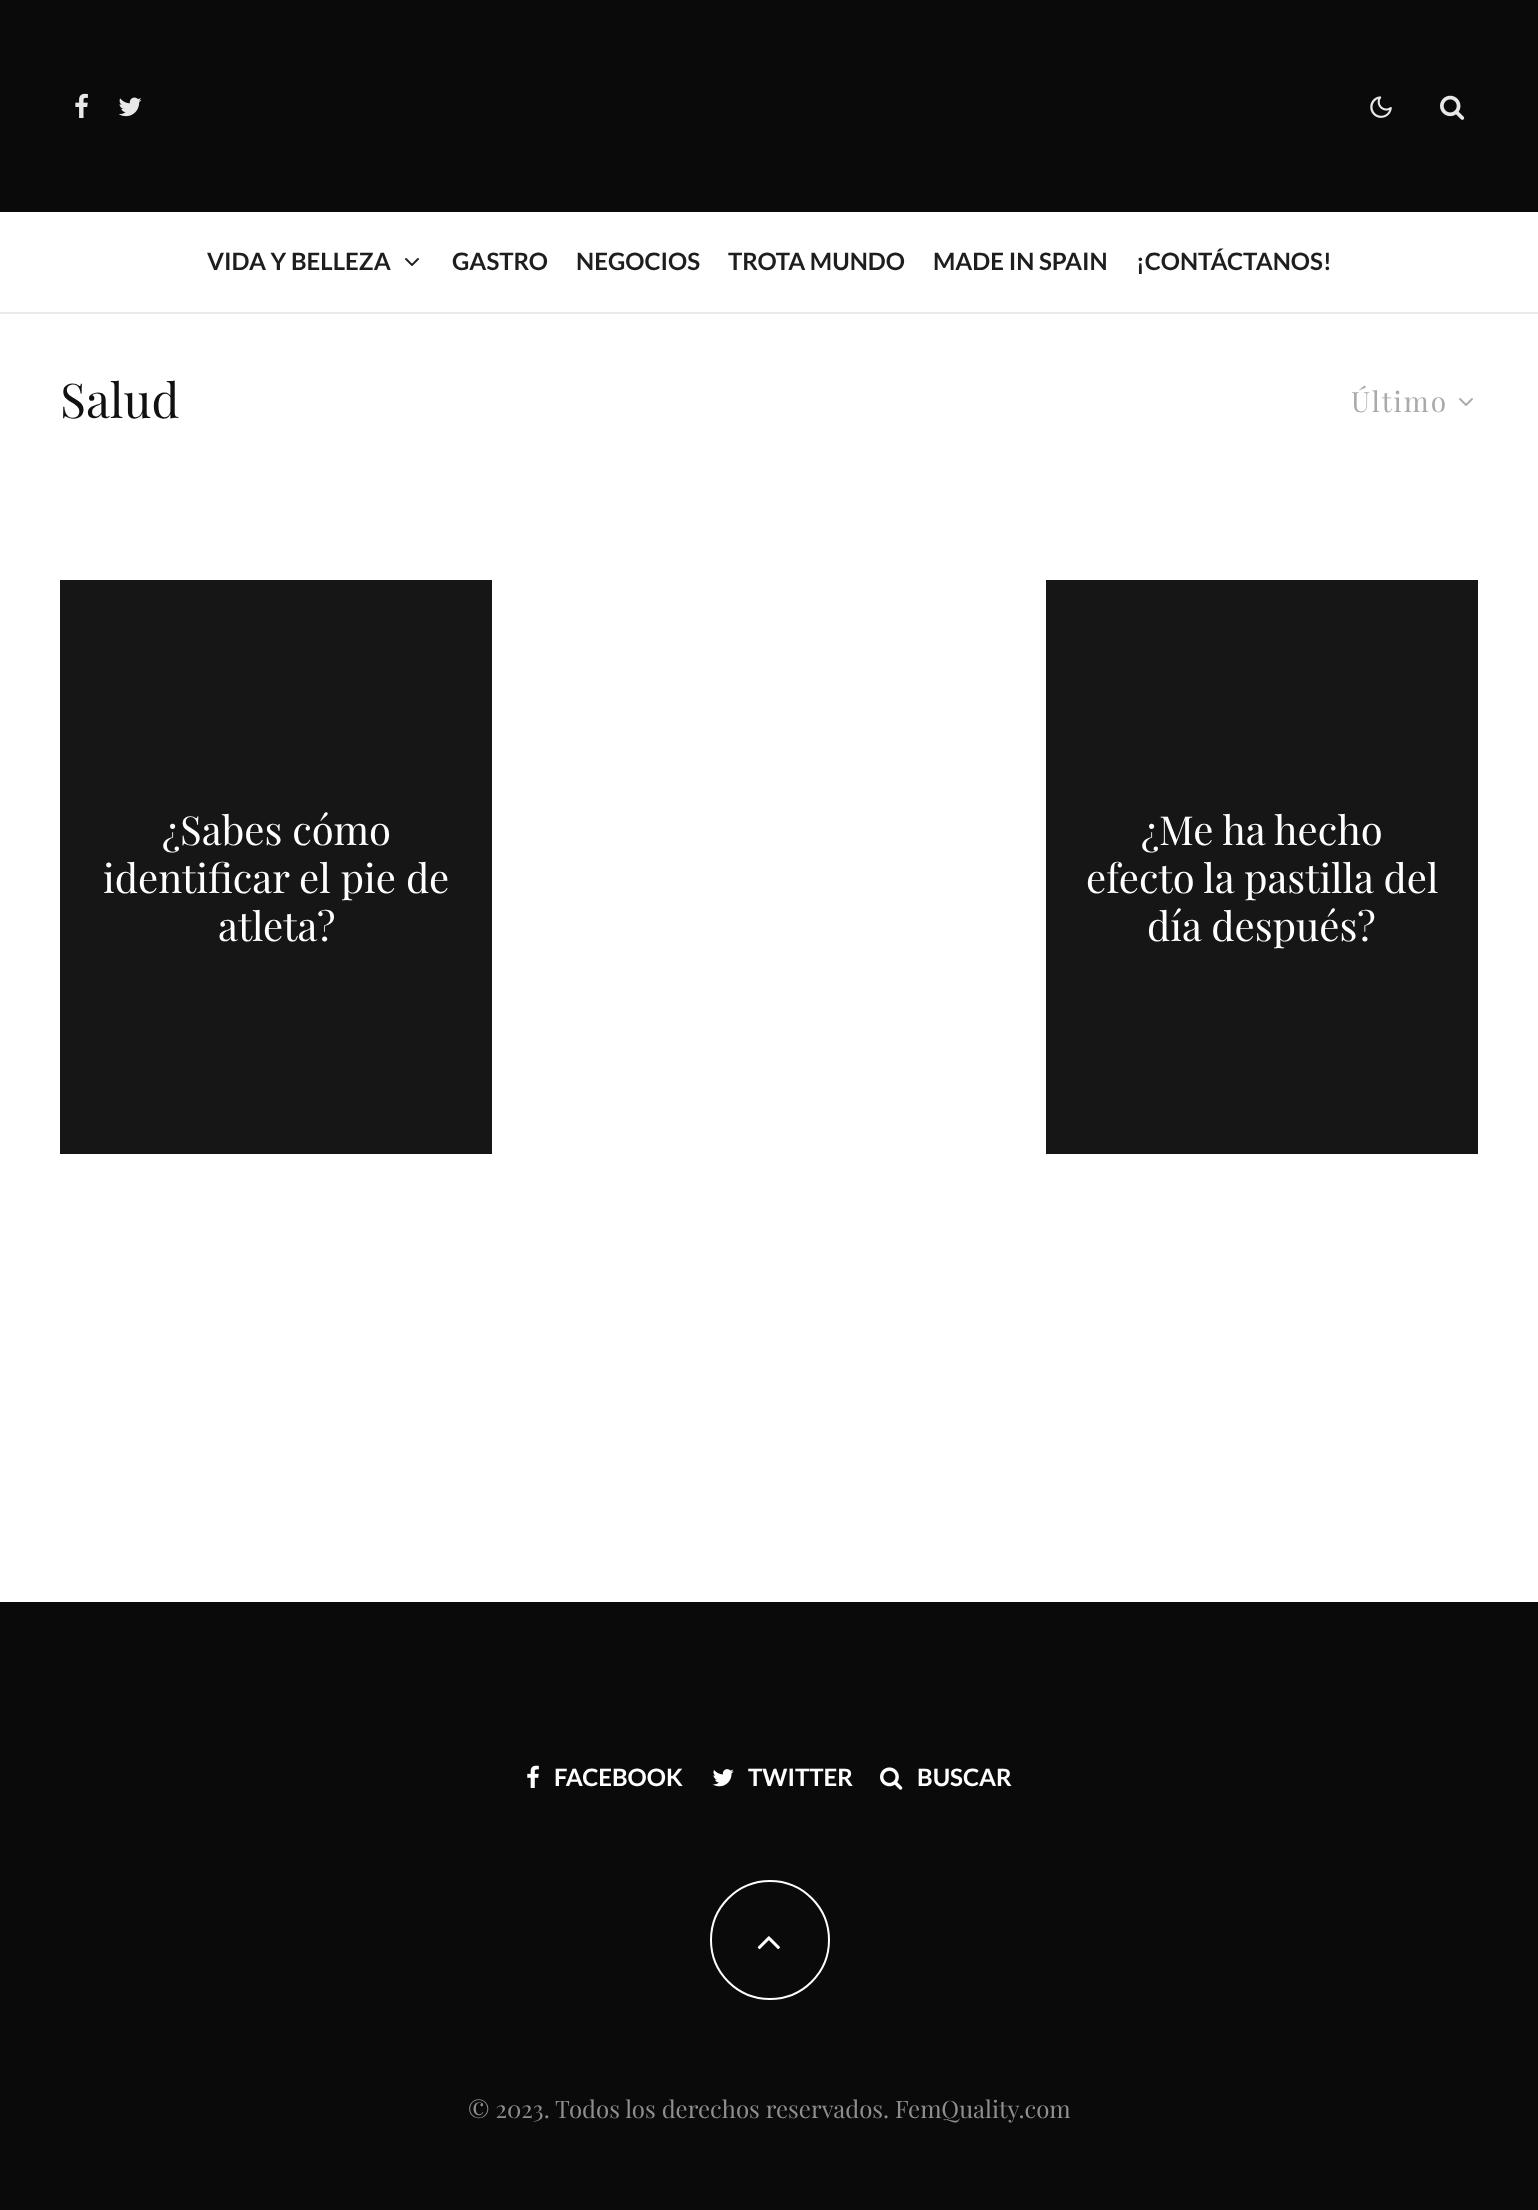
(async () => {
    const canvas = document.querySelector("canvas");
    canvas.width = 1538;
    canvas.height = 2210;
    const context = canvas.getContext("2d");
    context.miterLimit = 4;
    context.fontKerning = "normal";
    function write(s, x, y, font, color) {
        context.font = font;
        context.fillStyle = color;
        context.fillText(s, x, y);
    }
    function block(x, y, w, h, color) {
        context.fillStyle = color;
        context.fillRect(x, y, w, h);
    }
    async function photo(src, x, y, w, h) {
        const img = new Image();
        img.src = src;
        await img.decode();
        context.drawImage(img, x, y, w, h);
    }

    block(0, 0, 1538, 2210, "rgb(255, 255, 255)");
    block(0, 0, 1538, 212, "rgb(10, 10, 10)");
    await photo("media/1.png", 75, 93, 13, 25);
    await photo("media/2.png", 118, 97, 24, 20);
    await photo("media/3.png", 1370, 96, 22, 22);
    await photo("media/4.png", 1440, 95, 25, 25);
    block(0, 312, 1538, 2, "rgb(234, 234, 234)");
    write("VIDA Y BELLEZA", 207, 270, "bold 24px Lato", "rgb(30, 30, 30)");
    await photo("media/5.png", 405, 258, 14, 8);
    write("GASTRO", 452, 270, "bold 24px Lato", "rgb(30, 30, 30)");
    write("NEGOCIOS", 576, 270, "bold 24px Lato", "rgb(30, 30, 30)");
    write("TROTA MUNDO", 728, 270, "bold 24px Lato", "rgb(30, 30, 30)");
    write("MADE IN SPAIN", 933, 270, "bold 24px Lato", "rgb(30, 30, 30)");
    write("¡CONTÁCTANOS!", 1136, 270, "bold 24px Lato", "rgb(30, 30, 30)");
    write("Salud", 60, 418, "48px Playfair Display", "rgb(17, 17, 17)");
    context.letterSpacing = "2px";
    write("Último", 1351, 412, "28px Playfair Display", "rgb(170, 170, 170)");
    await photo("media/6.png", 1459, 398, 14, 8);
    block(60, 580, 432, 574, "rgb(22, 22, 22)");
    context.letterSpacing = "0px";
    write("¿Sabes cómo", 162, 845, "40px Playfair Display", "rgb(255, 255, 255)");
    write("identificar el pie de", 103, 893, "40px Playfair Display", "rgb(255, 255, 255)");
    write("atleta?", 218, 941, "40px Playfair Display", "rgb(255, 255, 255)");
    block(1046, 580, 432, 574, "rgb(22, 22, 22)");
    write("¿Me ha hecho", 1141, 845, "40px Playfair Display", "rgb(255, 255, 255)");
    write("efecto la pastilla del", 1086, 893, "40px Playfair Display", "rgb(255, 255, 255)");
    write("día después?", 1147, 941, "40px Playfair Display", "rgb(255, 255, 255)");
    block(0, 1602, 1538, 608, "rgb(10, 10, 10)");
    await photo("media/7.png", 527, 1765, 12, 23);
    write("FACEBOOK", 554, 1786, "bold 24px Lato", "rgb(255, 255, 255)");
    await photo("media/8.png", 712, 1769, 22, 18);
    write("TWITTER", 748, 1786, "bold 24px Lato", "rgb(255, 255, 255)");
    await photo("media/9.png", 880, 1767, 23, 23);
    write("BUSCAR", 917, 1786, "bold 24px Lato", "rgb(255, 255, 255)");
    context.beginPath();
    context.arc(770, 1940, 59, 0, Math.PI * 2);
    context.strokeStyle = "rgb(255, 255, 255)";
    context.lineWidth = 2;
    context.stroke();
    await photo("media/10.png", 757, 1936, 23, 14);
    write("© 2023. Todos los derechos reservados. FemQuality.com", 468, 2118, "24px Playfair Display", "rgb(142, 142, 142)");
})();
